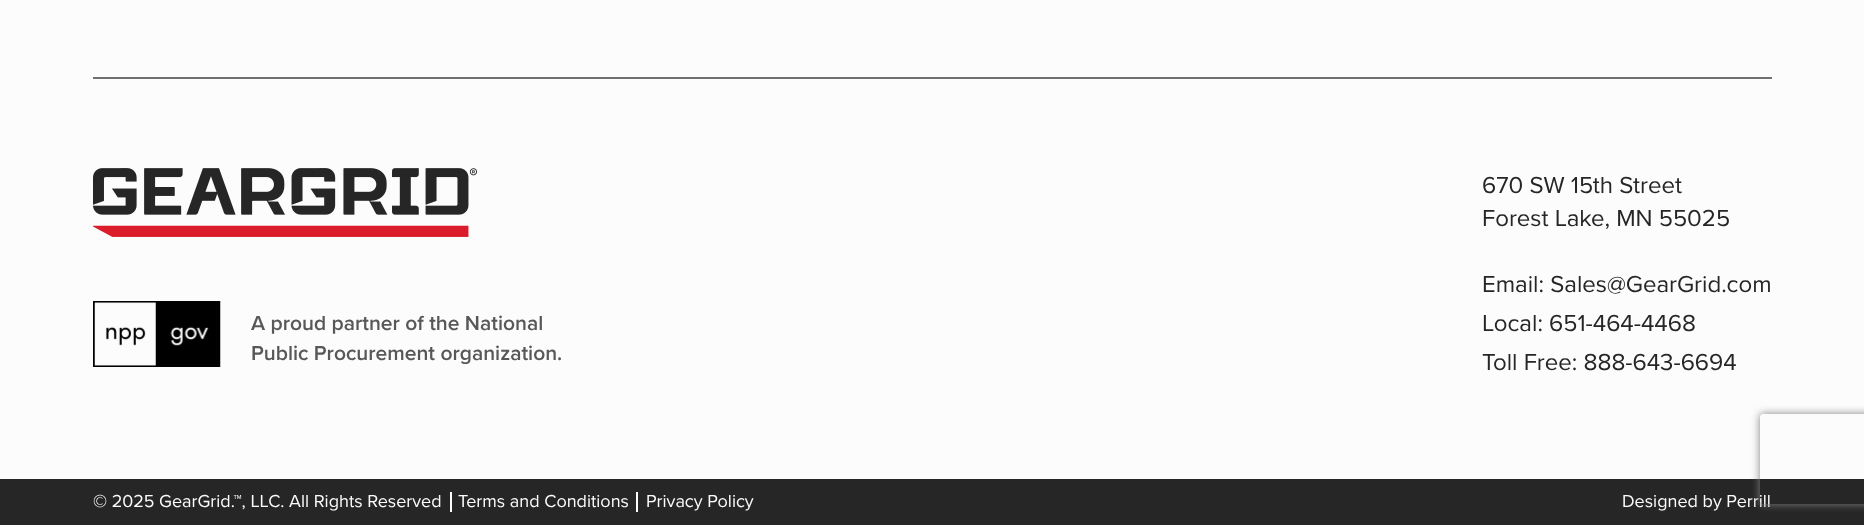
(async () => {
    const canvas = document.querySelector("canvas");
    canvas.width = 1864;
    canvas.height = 525;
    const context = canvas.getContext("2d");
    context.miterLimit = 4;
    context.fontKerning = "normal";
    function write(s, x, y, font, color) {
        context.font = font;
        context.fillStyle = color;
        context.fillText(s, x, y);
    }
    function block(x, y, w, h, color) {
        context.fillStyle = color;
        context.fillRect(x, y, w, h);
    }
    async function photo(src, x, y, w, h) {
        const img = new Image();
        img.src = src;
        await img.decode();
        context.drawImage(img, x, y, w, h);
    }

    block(0, 0, 1864, 525, "rgb(253, 252, 253)");
    block(93, 77, 1679, 2, "rgb(112, 112, 112)");
    await photo("media/1.png", 93, 168, 384, 69);
    await photo("media/2.png", 93, 301, 128, 66);
    write("A proud partner of the National", 251, 330, "600 21px Proxima Nova", "rgb(88, 88, 88)");
    write("Public Procurement organization.", 251, 360, "600 21px Proxima Nova", "rgb(88, 88, 88)");
    write("670 SW 15th Street", 1482, 193, "24px Proxima Nova", "rgb(38, 38, 38)");
    write("Forest Lake, MN 55025", 1482, 226, "24px Proxima Nova", "rgb(38, 38, 38)");
    write("Email: Sales@GearGrid.com", 1482, 292, "24px Proxima Nova", "rgb(38, 38, 38)");
    write("Local: 651-464-4468", 1482, 331, "24px Proxima Nova", "rgb(38, 38, 38)");
    write("Toll Free: 888-643-6694", 1482, 370, "24px Proxima Nova", "rgb(38, 38, 38)");
    block(0, 479, 1864, 46, "rgb(38, 38, 38)");
    block(450, 492, 2, 20, "rgb(253, 252, 253)");
    write("© 2025 GearGrid.™, LLC. All Rights Reserved", 93, 507, "18px Proxima Nova", "rgb(253, 252, 253)");
    block(636, 492, 2, 20, "rgb(253, 252, 253)");
    write("Terms and Conditions", 458, 507, "18px Proxima Nova", "rgb(253, 252, 253)");
    write("Privacy Policy", 646, 507, "18px Proxima Nova", "rgb(253, 252, 253)");
    write("Designed by Perrill", 1622, 507, "18px Proxima Nova", "rgb(253, 252, 253)");
    context.save();
    context.beginPath();
    context.moveTo(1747, 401);
    context.lineTo(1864, 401);
    context.lineTo(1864, 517);
    context.lineTo(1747, 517);
    context.closePath();
    context.moveTo(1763, 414);
    context.lineTo(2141, 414);
    context.bezierCurveTo(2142.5, 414, 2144, 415.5, 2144, 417);
    context.lineTo(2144, 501);
    context.bezierCurveTo(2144, 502.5, 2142.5, 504, 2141, 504);
    context.lineTo(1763, 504);
    context.bezierCurveTo(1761.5, 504, 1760, 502.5, 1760, 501);
    context.lineTo(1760, 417);
    context.bezierCurveTo(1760, 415.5, 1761.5, 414, 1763, 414);
    context.closePath();
    context.clip("evenodd");
    context.fillStyle = "rgb(128, 128, 128)";
    context.filter = "blur(4px)";
    context.beginPath();
    context.roundRect(1760, 414, 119, 90, 3);
    context.fill();
    context.filter = "none";
    context.restore();
})();
